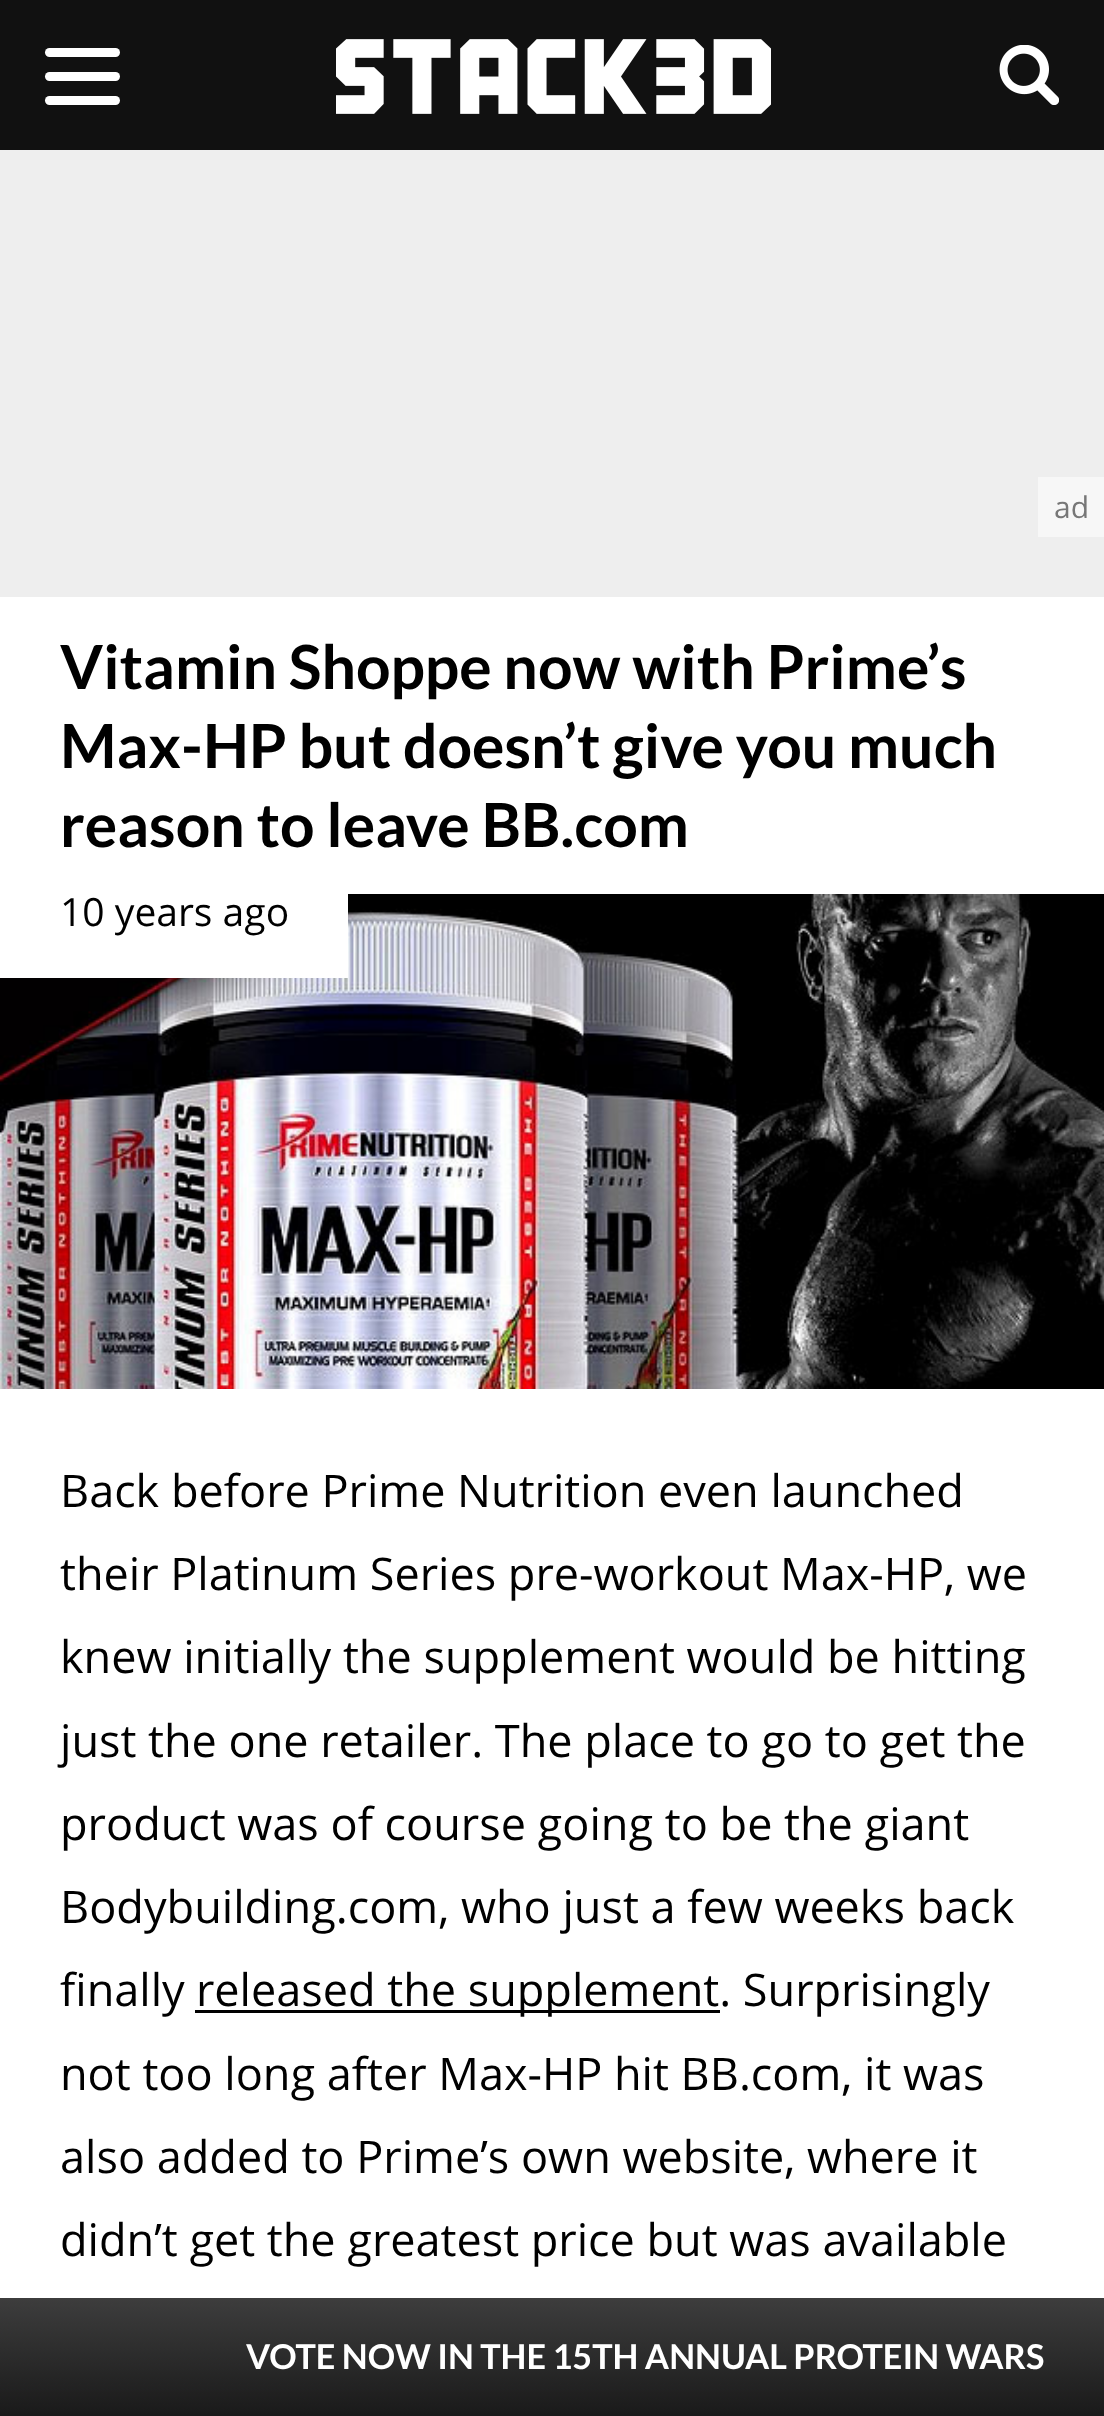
(async () => {
    const canvas = document.querySelector("canvas");
    canvas.width = 1104;
    canvas.height = 2416;
    const context = canvas.getContext("2d");
    context.miterLimit = 4;
    context.fontKerning = "normal";
    function write(s, x, y, font, color) {
        context.font = font;
        context.fillStyle = color;
        context.fillText(s, x, y);
    }
    function block(x, y, w, h, color) {
        context.fillStyle = color;
        context.fillRect(x, y, w, h);
    }
    function card(x, y, w, h, r, color) {
        context.fillStyle = color;
        context.beginPath();
        context.roundRect(x, y, w, h, r);
        context.fill();
    }
    async function photo(src, x, y, w, h) {
        const img = new Image();
        img.src = src;
        await img.decode();
        context.drawImage(img, x, y, w, h);
    }
    let gradient;

    block(0, 0, 1104, 2416, "rgb(238, 238, 238)");
    block(0, 0, 1104, 150, "rgb(17, 17, 17)");
    card(45, 72, 75, 9, 4.5, "rgb(255, 255, 255)");
    card(45, 48, 75, 9, 4.5, "rgb(255, 255, 255)");
    card(45, 96, 75, 9, 4.5, "rgb(255, 255, 255)");
    await photo("media/1.png", 336, 39, 435, 75);
    await photo("media/2.png", 999, 45, 60, 60);
    block(1038, 477, 66, 60, "rgb(247, 247, 247)");
    write("ad", 1054, 518, "30px Open Sans", "rgb(119, 119, 119)");
    block(0, 597, 1104, 297, "rgb(255, 255, 255)");
    write("Vitamin Shoppe now with Prime’s", 60, 689, "bold 60.75px Lato", "rgb(0, 0, 0)");
    write("Max-HP but doesn’t give you much", 60, 768, "bold 60.75px Lato", "rgb(0, 0, 0)");
    write("reason to leave BB.com", 60, 847, "bold 60.75px Lato", "rgb(0, 0, 0)");
    await photo("media/3.png", 0, 894, 1104, 495);
    block(0, 894, 348, 84, "rgb(255, 255, 255)");
    write("10 years ago", 60, 926, "39px Open Sans", "rgb(0, 0, 0)");
    block(0, 1389, 1104, 909, "rgb(255, 255, 255)");
    write("Back before Prime Nutrition even launched", 60, 1507, "45px Open Sans", "rgb(0, 0, 0)");
    write("their Platinum Series pre-workout Max-HP, we", 60, 1590, "45px Open Sans", "rgb(0, 0, 0)");
    write("knew initially the supplement would be hitting", 60, 1673, "45px Open Sans", "rgb(0, 0, 0)");
    write("just the one retailer. The place to go to get the", 60, 1757, "45px Open Sans", "rgb(0, 0, 0)");
    write("product was of course going to be the giant", 60, 1840, "45px Open Sans", "rgb(0, 0, 0)");
    write("Bodybuilding.com, who just a few weeks back", 60, 1923, "45px Open Sans", "rgb(0, 0, 0)");
    write("finally", 60, 2006, "45px Open Sans", "rgb(0, 0, 0)");
    block(195, 2010, 525, 3, "rgb(0, 0, 0)");
    write("released the supplement. Surprisingly", 196, 2006, "45px Open Sans", "rgb(0, 0, 0)");
    write("not too long after Max-HP hit BB.com, it was", 60, 2090, "45px Open Sans", "rgb(0, 0, 0)");
    write("also added to Prime’s own website, where it", 60, 2173, "45px Open Sans", "rgb(0, 0, 0)");
    write("didn’t get the greatest price but was available", 60, 2256, "45px Open Sans", "rgb(0, 0, 0)");
    gradient = context.createLinearGradient(552, 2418, 552, 2298);
    gradient.addColorStop(0, "rgb(25, 25, 25)");
    gradient.addColorStop(1, "rgb(61, 61, 61)");
    context.fillStyle = gradient;
    context.fillRect(0, 2298, 1104, 118);
    context.wordSpacing = "-0.25px";
    write("VOTE NOW IN THE 15TH ANNUAL PROTEIN WARS", 246, 2369, "bold 34.25px Lato", "rgb(255, 255, 255)");
})();
